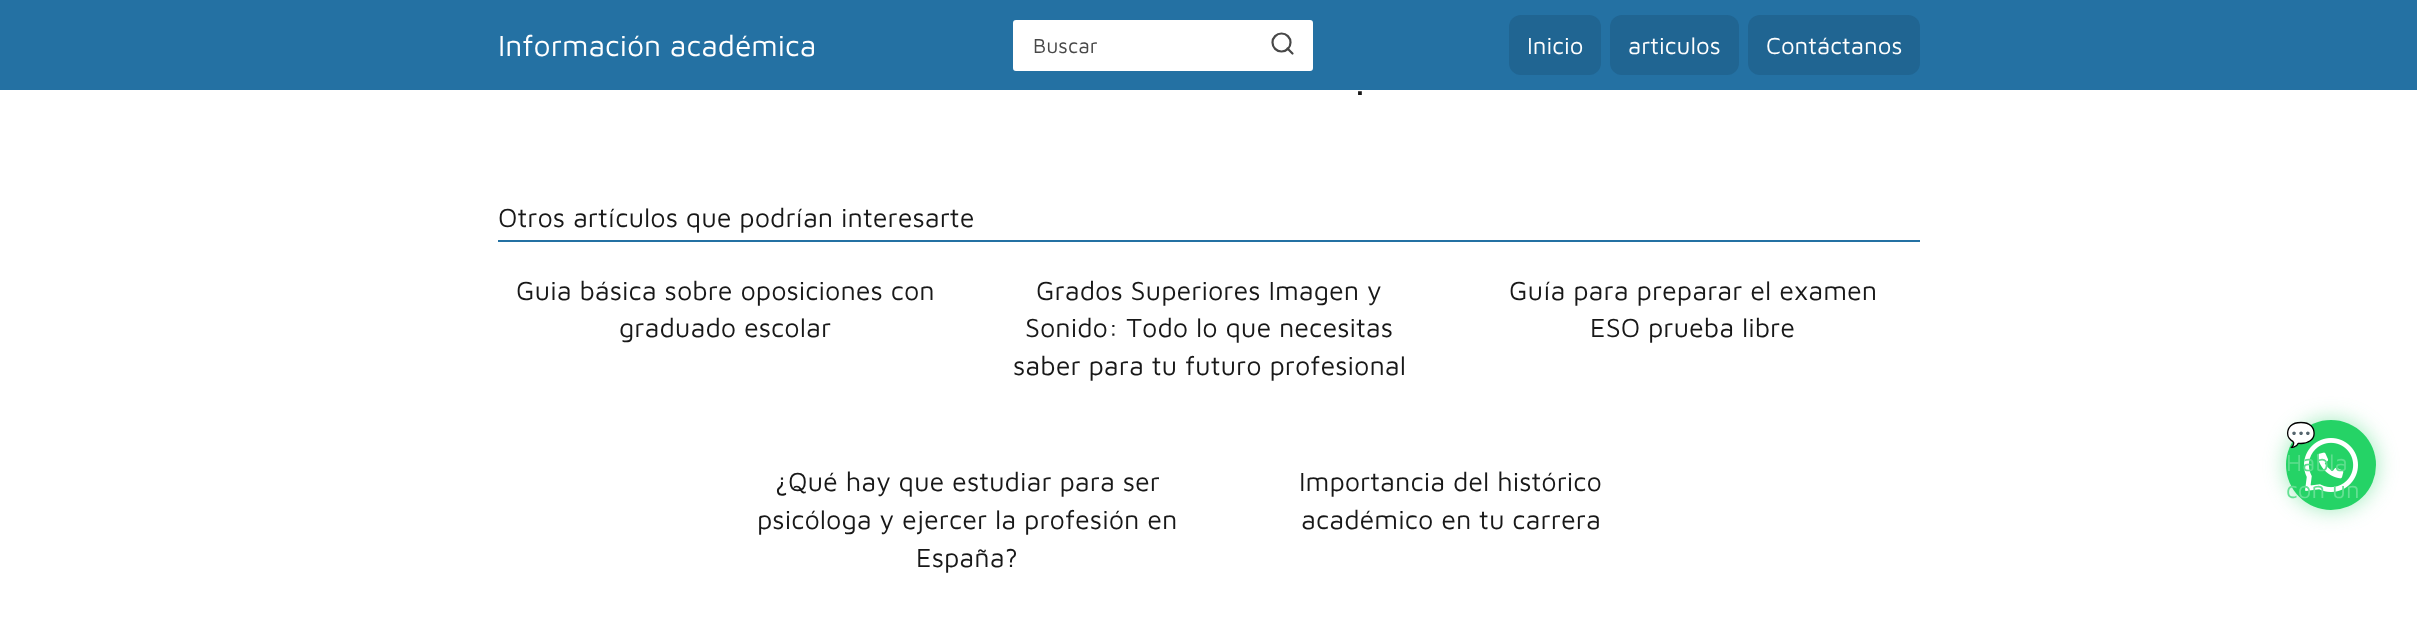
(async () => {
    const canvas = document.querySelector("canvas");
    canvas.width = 2417;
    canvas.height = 642;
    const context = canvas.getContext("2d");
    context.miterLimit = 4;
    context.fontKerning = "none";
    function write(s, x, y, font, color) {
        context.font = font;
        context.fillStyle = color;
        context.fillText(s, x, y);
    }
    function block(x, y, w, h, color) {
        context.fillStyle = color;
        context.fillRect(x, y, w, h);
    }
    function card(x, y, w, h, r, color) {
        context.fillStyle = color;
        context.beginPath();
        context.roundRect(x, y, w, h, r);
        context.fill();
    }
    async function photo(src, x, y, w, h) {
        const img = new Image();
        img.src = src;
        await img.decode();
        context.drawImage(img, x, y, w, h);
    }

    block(0, 0, 2417, 642, "rgb(255, 255, 255)");
    block(0, 0, 2417, 90, "rgb(36, 113, 163)");
    write("Información académica", 498, 56, "30px Maven Pro", "rgb(255, 255, 255)");
    context.beginPath();
    context.roundRect(1014, 21, 298, 49, 2);
    context.fill();
    context.strokeStyle = "rgb(255, 255, 255)";
    context.lineWidth = 2;
    context.stroke();
    write("Buscar", 1033, 53, "21px Maven Pro", "rgb(72, 72, 72)");
    context.beginPath();
    context.arc(1281.5, 42.5, 9, 0, Math.PI * 2);
    context.strokeStyle = "rgb(72, 72, 72)";
    context.lineWidth = 2.2;
    context.stroke();
    context.beginPath();
    context.moveTo(1292.5, 53.5);
    context.lineTo(1287.5, 48.5);
    context.lineCap = "round";
    context.lineJoin = "round";
    context.stroke();
    card(1509, 15, 92, 60, 12, "rgb(32, 101, 146)");
    write("Inicio", 1527, 54, "24px Maven Pro", "rgb(255, 255, 255)");
    card(1610, 15, 129, 60, 12, "rgb(32, 101, 146)");
    write("articulos", 1628, 54, "24px Maven Pro", "rgb(255, 255, 255)");
    card(1748, 15, 172, 60, 12, "rgb(32, 101, 146)");
    write("Contáctanos", 1766, 54, "24px Maven Pro", "rgb(255, 255, 255)");
    write(".", 1355, 95, "38px Maven Pro", "rgb(24, 24, 24)");
    block(498, 240, 1422, 2, "rgb(36, 113, 163)");
    write("Otros artículos que podrían interesarte", 498, 227, "27px Maven Pro", "rgb(24, 24, 24)");
    write("Guia básica sobre oposiciones con", 516, 300, "27px Maven Pro", "rgb(24, 24, 24)");
    write("graduado escolar", 619, 337, "27px Maven Pro", "rgb(24, 24, 24)");
    write("Grados Superiores Imagen y", 1036, 300, "27px Maven Pro", "rgb(24, 24, 24)");
    write("Sonido: Todo lo que necesitas", 1025, 337, "27px Maven Pro", "rgb(24, 24, 24)");
    write("saber para tu futuro profesional", 1013, 375, "27px Maven Pro", "rgb(24, 24, 24)");
    write("Guía para preparar el examen", 1509, 300, "27px Maven Pro", "rgb(24, 24, 24)");
    write("ESO prueba libre", 1590, 337, "27px Maven Pro", "rgb(24, 24, 24)");
    write("¿Qué hay que estudiar para ser", 775, 491, "27px Maven Pro", "rgb(24, 24, 24)");
    write("psicóloga y ejercer la profesión en", 757, 529, "27px Maven Pro", "rgb(24, 24, 24)");
    write("España?", 916, 567, "27px Maven Pro", "rgb(24, 24, 24)");
    write("Importancia del histórico", 1299, 491, "27px Maven Pro", "rgb(24, 24, 24)");
    write("académico en tu carrera", 1301, 529, "27px Maven Pro", "rgb(24, 24, 24)");
    context.fillStyle = "rgba(37, 211, 102, 0.45)";
    context.filter = "blur(10.5px)";
    context.beginPath();
    context.roundRect(2286, 420, 90, 90, 45);
    context.fill();
    context.filter = "none";
    context.fillStyle = "rgb(37, 211, 102)";
    context.beginPath();
    context.arc(2331, 465, 45, 0, Math.PI * 2);
    context.fill();
    await photo("media/1.png", 2304, 438, 54, 54);
    write("💬", 2286, 443, "24px Noto Color Emoji", "rgb(132, 230, 169)");
    write("Habla", 2286, 471, "24px Maven Pro", "rgb(94, 222, 142)");
    write("con un", 2286, 498, "24px Maven Pro", "rgb(101, 224, 147)");
})();
